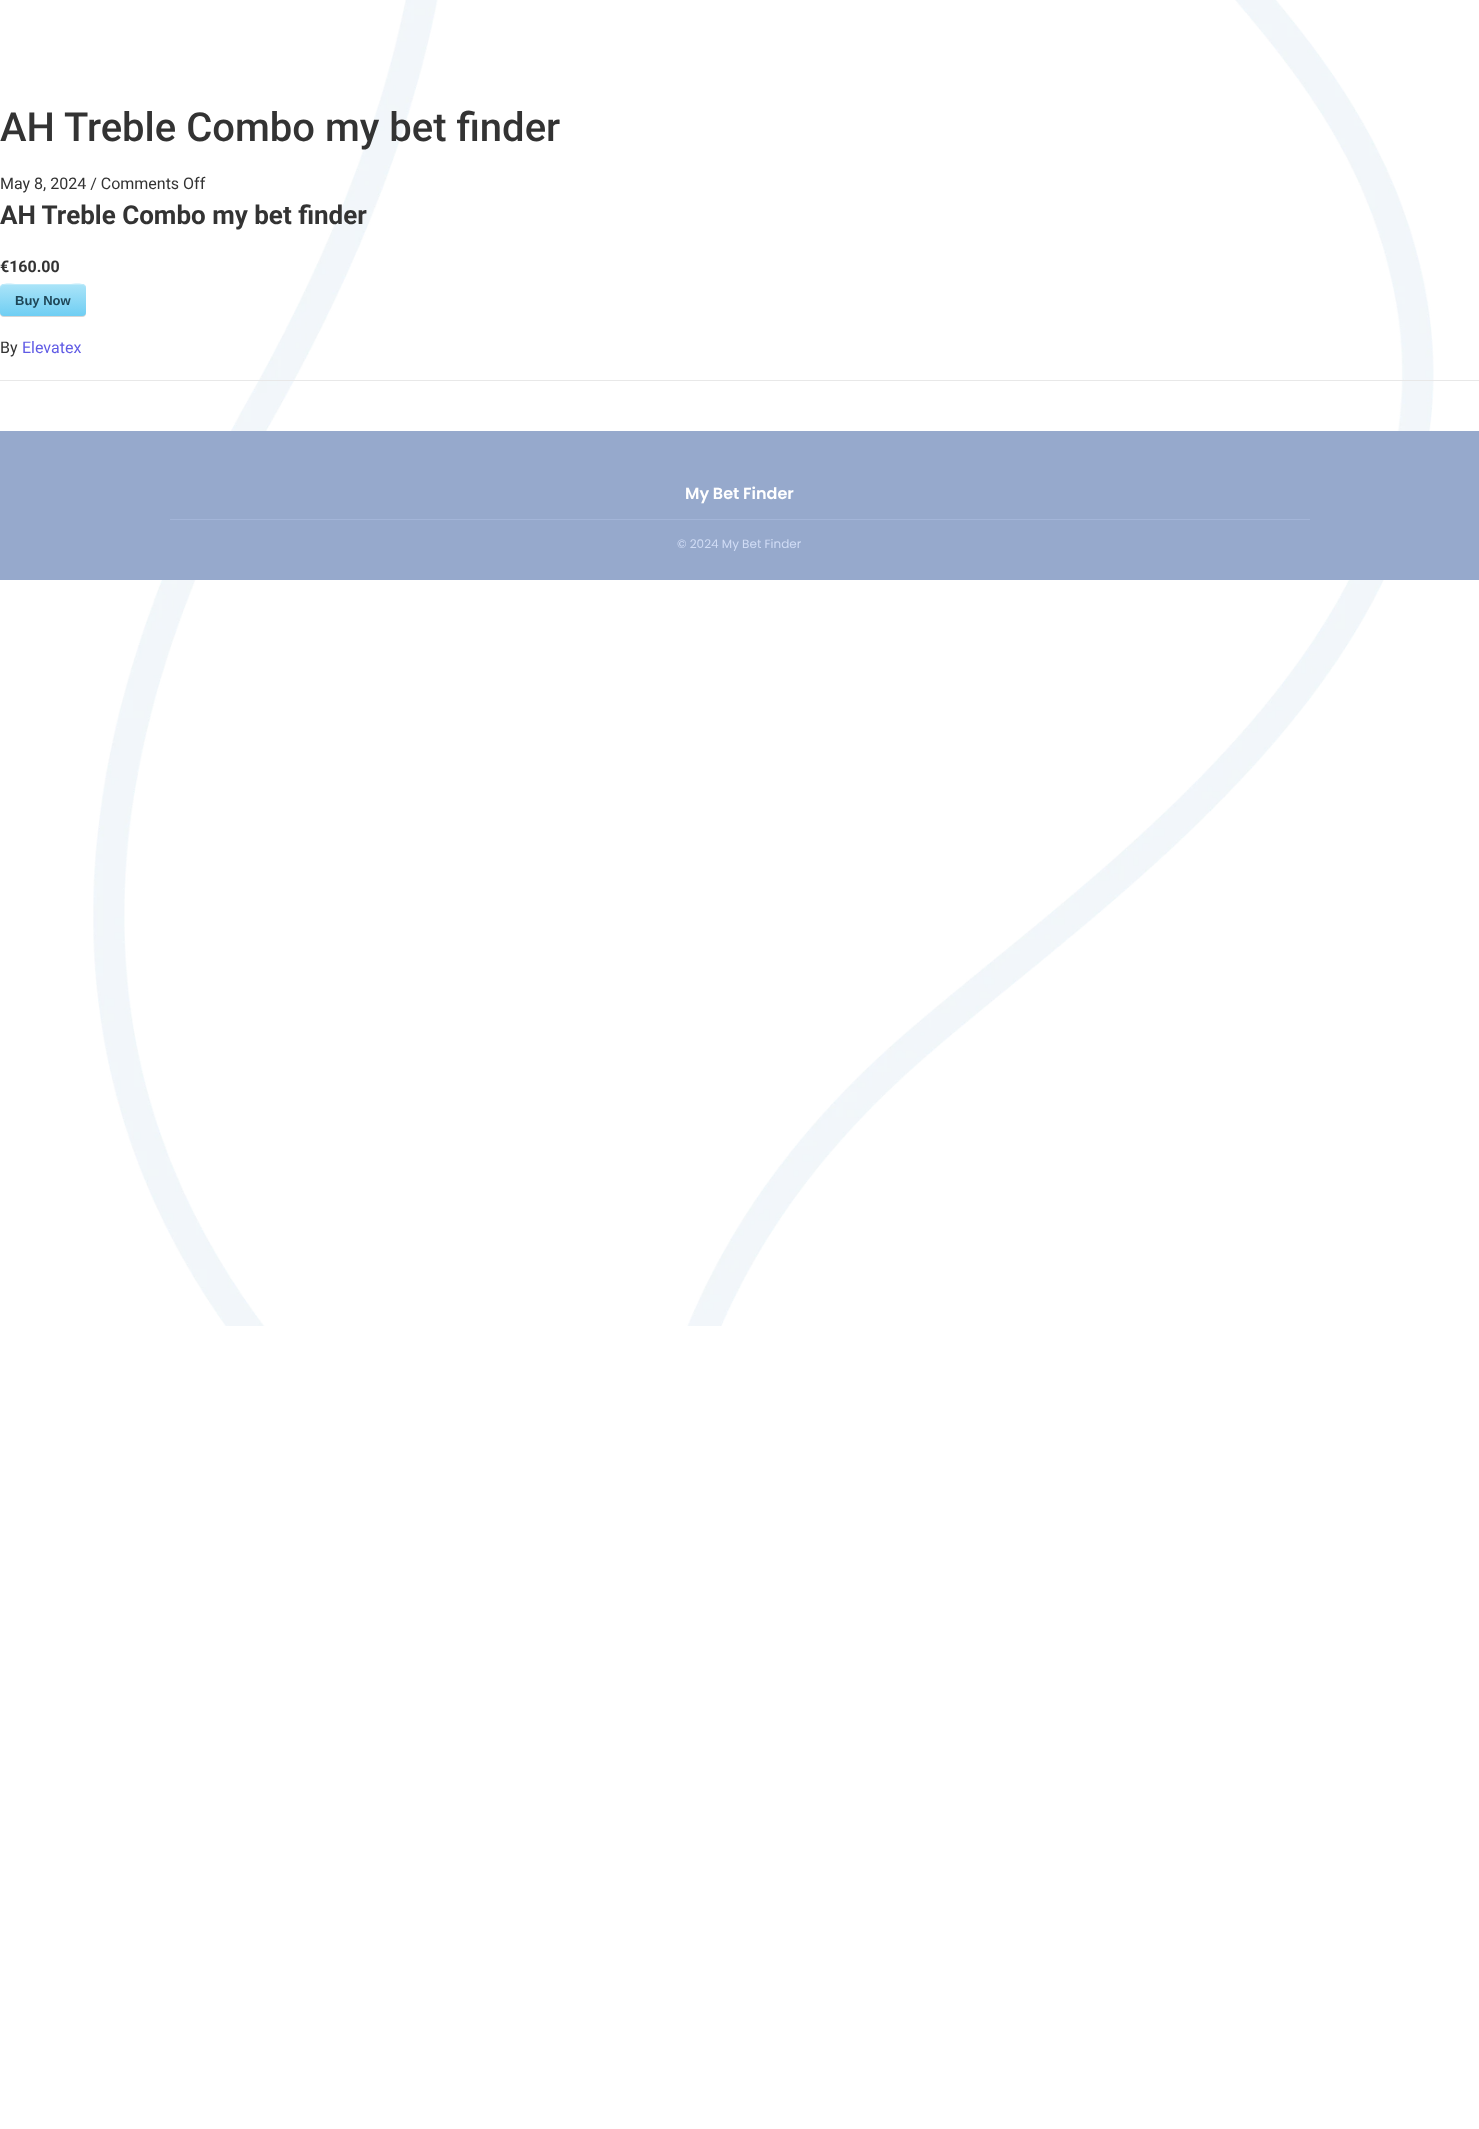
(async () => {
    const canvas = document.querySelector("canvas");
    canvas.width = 1479;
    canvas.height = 2129;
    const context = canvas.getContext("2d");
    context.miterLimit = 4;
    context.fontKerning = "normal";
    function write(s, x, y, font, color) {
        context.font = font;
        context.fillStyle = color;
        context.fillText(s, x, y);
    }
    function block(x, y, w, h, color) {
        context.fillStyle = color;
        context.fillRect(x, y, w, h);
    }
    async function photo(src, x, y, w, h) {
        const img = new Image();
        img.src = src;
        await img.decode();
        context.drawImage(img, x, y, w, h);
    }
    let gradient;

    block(0, 0, 1479, 2129, "rgb(255, 255, 255)");
    await photo("media/1.png", 93, 0, 1341, 1326);
    write("AH Treble Combo my bet finder", 0, 141, "500 40px Roboto", "rgb(51, 51, 51)");
    write("May 8, 2024 / Comments Off", 0, 189, "16px Roboto", "rgb(51, 51, 51)");
    write("AH Treble Combo my bet finder", 0, 224, "bold 26px Roboto", "rgb(51, 51, 51)");
    write("€160.00", 0, 272, "bold 16px Roboto", "rgb(51, 51, 51)");
    context.fillStyle = "rgb(214, 214, 214)";
    context.filter = "blur(0.5px)";
    context.beginPath();
    context.roundRect(0, 285, 86, 32, 4);
    context.fill();
    context.filter = "none";
    gradient = context.createLinearGradient(0, 284, 0, 316);
    gradient.addColorStop(0, "rgb(171, 228, 248)");
    gradient.addColorStop(1, "rgb(111, 206, 243)");
    context.fillStyle = gradient;
    context.beginPath();
    context.roundRect(0, 284, 86, 32, 4);
    context.fill();
    context.fillStyle = "rgb(192, 235, 250)";
    context.beginPath();
    context.moveTo(4, 285);
    context.lineTo(82, 285);
    context.bezierCurveTo(84, 285, 86, 287, 86, 289);
    context.bezierCurveTo(86, 281, 74, 284, 69, 284);
    context.lineTo(17, 284);
    context.bezierCurveTo(12, 284, 0, 281, 0, 289);
    context.bezierCurveTo(0, 287, 2, 285, 4, 285);
    context.closePath();
    context.fill();
    write("Buy Now", 15, 305, "bold 13px Liberation Sans", "rgb(30, 70, 87)");
    block(0, 380, 1479, 1, "rgb(232, 232, 232)");
    write("By", 0, 353, "16px Roboto", "rgb(51, 51, 51)");
    write("Elevatex", 22, 353, "16px Roboto", "rgb(96, 91, 229)");
    block(0, 431, 1479, 149, "rgb(150, 169, 204)");
    write("My Bet Finder", 685, 499, "600 16px Poppins", "rgb(255, 255, 255)");
    block(170, 519, 1140, 1, "rgb(163, 181, 216)");
    write("© 2024 My Bet Finder", 677, 548, "12px Poppins", "rgb(208, 220, 245)");
})();
